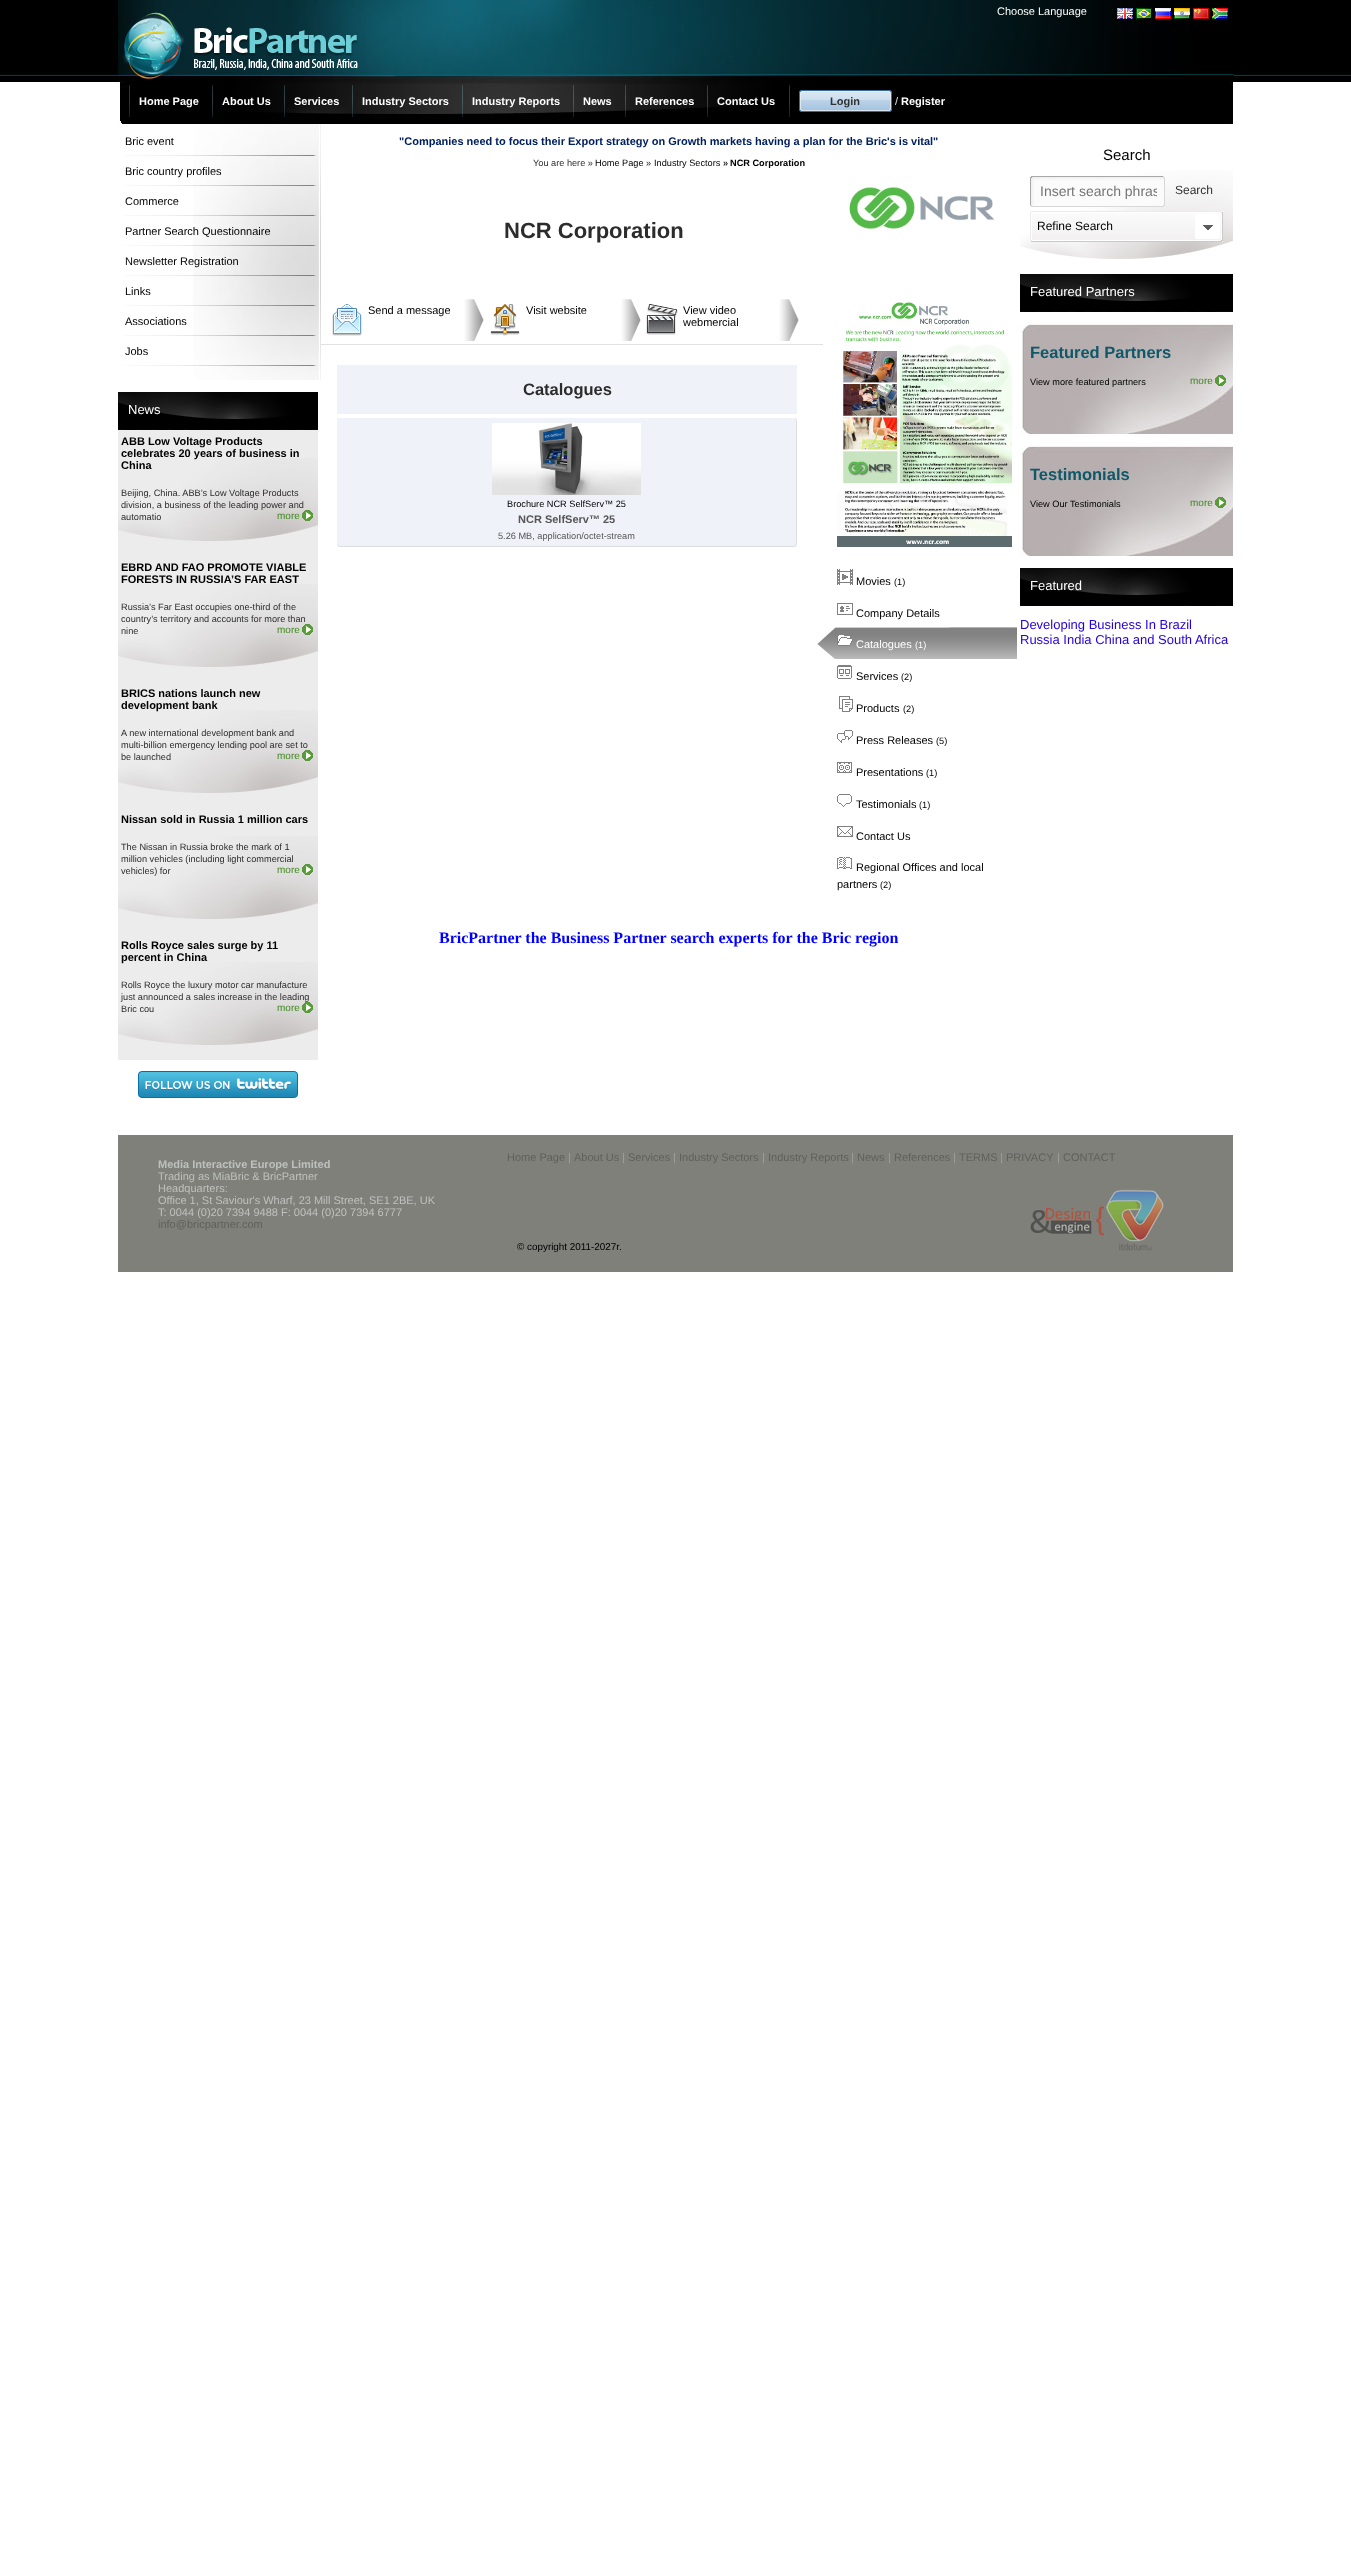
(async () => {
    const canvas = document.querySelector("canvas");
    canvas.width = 1351;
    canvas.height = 2555;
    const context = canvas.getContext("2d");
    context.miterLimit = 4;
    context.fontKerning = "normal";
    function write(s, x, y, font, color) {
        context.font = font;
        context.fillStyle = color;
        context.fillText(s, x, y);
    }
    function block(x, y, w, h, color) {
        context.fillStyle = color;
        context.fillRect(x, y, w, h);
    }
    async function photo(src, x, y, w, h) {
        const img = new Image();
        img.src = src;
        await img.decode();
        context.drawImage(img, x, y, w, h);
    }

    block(0, 0, 1351, 2555, "rgb(255, 255, 255)");
    await photo("media/1.png", 0, 0, 1351, 82);
    await photo("media/2.png", 118, 0, 1115, 124);
    await photo("media/3.png", 123, 12, 235, 67);
    write("Choose Language", 997, 15, "11px Liberation Sans", "rgb(255, 255, 255)");
    await photo("media/4.png", 1117, 8, 16, 11);
    await photo("media/5.png", 1136, 8, 16, 11);
    await photo("media/6.png", 1155, 8, 16, 11);
    await photo("media/7.png", 1174, 8, 16, 11);
    await photo("media/8.png", 1193, 8, 16, 11);
    await photo("media/9.png", 1212, 8, 16, 11);
    await photo("media/10.png", 129, 85, 1, 32);
    write("Home Page", 139, 105, "bold 11px Liberation Sans", "rgb(255, 255, 255)");
    await photo("media/10.png", 212, 85, 1, 32);
    write("About Us", 222, 105, "bold 11px Liberation Sans", "rgb(255, 255, 255)");
    await photo("media/11.png", 284, 85, 1, 32);
    write("Services", 294, 105, "bold 11px Liberation Sans", "rgb(255, 255, 255)");
    await photo("media/12.png", 352, 85, 1, 32);
    write("Industry Sectors", 362, 105, "bold 11px Liberation Sans", "rgb(255, 255, 255)");
    await photo("media/13.png", 462, 85, 1, 32);
    write("Industry Reports", 472, 105, "bold 11px Liberation Sans", "rgb(255, 255, 255)");
    await photo("media/14.png", 573, 85, 1, 32);
    write("News", 583, 105, "bold 11px Liberation Sans", "rgb(255, 255, 255)");
    await photo("media/15.png", 625, 85, 1, 32);
    write("References", 635, 105, "bold 11px Liberation Sans", "rgb(255, 255, 255)");
    await photo("media/16.png", 707, 85, 1, 32);
    write("Contact Us", 717, 105, "bold 11px Liberation Sans", "rgb(255, 255, 255)");
    await photo("media/10.png", 789, 85, 1, 32);
    await photo("media/17.png", 799, 90, 93, 22);
    write("Login", 830, 105, "bold 11px Liberation Sans", "rgb(51, 51, 51)");
    write("/", 895, 105, "11px Liberation Sans", "rgb(224, 227, 225)");
    write("Register", 901, 105, "bold 11px Liberation Sans", "rgb(255, 255, 255)");
    await photo("media/18.png", 193, 124, 128, 256);
    await photo("media/19.png", 124, 155, 192, 1);
    write("Bric event", 125, 145, "11px Liberation Sans", "rgb(0, 0, 0)");
    await photo("media/20.png", 124, 185, 192, 1);
    write("Bric country profiles", 125, 175, "11px Liberation Sans", "rgb(0, 0, 0)");
    await photo("media/21.png", 124, 215, 192, 1);
    write("Commerce", 125, 205, "11px Liberation Sans", "rgb(0, 0, 0)");
    await photo("media/22.png", 124, 245, 192, 1);
    write("Partner Search Questionnaire", 125, 235, "11px Liberation Sans", "rgb(0, 0, 0)");
    await photo("media/23.png", 124, 275, 192, 1);
    write("Newsletter Registration", 125, 265, "11px Liberation Sans", "rgb(0, 0, 0)");
    await photo("media/24.png", 124, 305, 192, 1);
    write("Links", 125, 295, "11px Liberation Sans", "rgb(0, 0, 0)");
    await photo("media/25.png", 124, 335, 192, 1);
    write("Associations", 125, 325, "11px Liberation Sans", "rgb(0, 0, 0)");
    await photo("media/26.png", 124, 365, 192, 1);
    write("Jobs", 125, 355, "11px Liberation Sans", "rgb(0, 0, 0)");
    await photo("media/27.png", 118, 392, 200, 38);
    write("News", 128, 414, "13px Liberation Sans", "rgb(255, 255, 255)");
    block(118, 430, 200, 630, "rgb(236, 236, 236)");
    await photo("media/28.png", 118, 458, 200, 83);
    write("ABB Low Voltage Products", 121, 445, "bold 11px Liberation Sans", "rgb(0, 0, 0)");
    write("celebrates 20 years of business in", 121, 457, "bold 11px Liberation Sans", "rgb(0, 0, 0)");
    write("China", 121, 469, "bold 11px Liberation Sans", "rgb(0, 0, 0)");
    write("Beijing, China. ABB’s Low Voltage Products", 121, 496, "9.2px Liberation Sans", "rgb(44, 44, 45)");
    write("division, a business of the leading power and", 121, 508, "9.2px Liberation Sans", "rgb(44, 44, 45)");
    write("automatio", 121, 520, "9.2px Liberation Sans", "rgb(44, 44, 45)");
    await photo("media/29.png", 302, 510, 11, 11);
    write("more", 277, 519, "10px Liberation Sans", "rgb(65, 138, 32)");
    await photo("media/28.png", 118, 584, 200, 83);
    write("EBRD AND FAO PROMOTE VIABLE", 121, 571, "bold 11px Liberation Sans", "rgb(0, 0, 0)");
    write("FORESTS IN RUSSIA’S FAR EAST", 121, 583, "bold 11px Liberation Sans", "rgb(0, 0, 0)");
    write("Russia’s Far East occupies one-third of the", 121, 610, "9.2px Liberation Sans", "rgb(44, 44, 45)");
    write("country’s territory and accounts for more than", 121, 622, "9.2px Liberation Sans", "rgb(44, 44, 45)");
    write("nine", 121, 634, "9.2px Liberation Sans", "rgb(44, 44, 45)");
    await photo("media/30.png", 302, 624, 11, 11);
    write("more", 277, 633, "10px Liberation Sans", "rgb(65, 138, 32)");
    await photo("media/28.png", 118, 710, 200, 83);
    write("BRICS nations launch new", 121, 697, "bold 11px Liberation Sans", "rgb(0, 0, 0)");
    write("development bank", 121, 709, "bold 11px Liberation Sans", "rgb(0, 0, 0)");
    write("A new international development bank and", 121, 736, "9.2px Liberation Sans", "rgb(44, 44, 45)");
    write("multi-billion emergency lending pool are set to", 121, 748, "9.2px Liberation Sans", "rgb(44, 44, 45)");
    write("be launched", 121, 760, "9.2px Liberation Sans", "rgb(44, 44, 45)");
    await photo("media/30.png", 302, 750, 11, 11);
    write("more", 277, 759, "10px Liberation Sans", "rgb(65, 138, 32)");
    await photo("media/28.png", 118, 836, 200, 83);
    write("Nissan sold in Russia 1 million cars", 121, 823, "bold 11px Liberation Sans", "rgb(0, 0, 0)");
    write("The Nissan in Russia broke the mark of 1", 121, 850, "9.2px Liberation Sans", "rgb(44, 44, 45)");
    write("million vehicles (including light commercial", 121, 862, "9.2px Liberation Sans", "rgb(44, 44, 45)");
    write("vehicles) for", 121, 874, "9.2px Liberation Sans", "rgb(44, 44, 45)");
    await photo("media/31.png", 302, 864, 11, 11);
    write("more", 277, 873, "10px Liberation Sans", "rgb(65, 138, 32)");
    await photo("media/28.png", 118, 962, 200, 83);
    write("Rolls Royce sales surge by 11", 121, 949, "bold 11px Liberation Sans", "rgb(0, 0, 0)");
    write("percent in China", 121, 961, "bold 11px Liberation Sans", "rgb(0, 0, 0)");
    write("Rolls Royce the luxury motor car manufacture", 121, 988, "9.2px Liberation Sans", "rgb(44, 44, 45)");
    write("just announced a sales increase in the leading", 121, 1000, "9.2px Liberation Sans", "rgb(44, 44, 45)");
    write("Bric cou", 121, 1012, "9.2px Liberation Sans", "rgb(44, 44, 45)");
    await photo("media/30.png", 302, 1002, 11, 11);
    write("more", 277, 1011, "10px Liberation Sans", "rgb(65, 138, 32)");
    await photo("media/32.png", 138, 1071, 160, 27);
    write("\"Companies need to focus their Export strategy on Growth markets having a plan for the Bric's is vital\"", 399, 145, "bold 11px Liberation Sans", "rgb(0, 32, 96)");
    write("You are here »", 533, 166, "9.2px Liberation Sans", "rgb(44, 44, 45)");
    write("Home Page", 595, 166, "9.2px Liberation Sans", "rgb(0, 0, 0)");
    write("»", 646, 166, "9.2px Liberation Sans", "rgb(44, 44, 45)");
    write("Industry Sectors", 654, 166, "9.2px Liberation Sans", "rgb(0, 0, 0)");
    write("»", 723, 166, "bold 9.2px Liberation Sans", "rgb(44, 44, 45)");
    write("NCR Corporation", 730, 166, "bold 9.2px Liberation Sans", "rgb(0, 0, 0)");
    await photo("media/33.png", 849, 187, 146, 42);
    write("NCR Corporation", 504, 238, "bold 22px Liberation Sans", "rgb(44, 44, 45)");
    block(321, 344, 502, 1, "rgb(224, 227, 225)");
    await photo("media/34.png", 464, 299, 20, 42);
    await photo("media/35.png", 332, 304, 30, 32);
    write("Send a message", 368, 314, "11px Liberation Sans", "rgb(0, 0, 0)");
    await photo("media/34.png", 621, 299, 20, 42);
    await photo("media/36.png", 490, 304, 30, 32);
    write("Visit website", 526, 314, "11px Liberation Sans", "rgb(0, 0, 0)");
    await photo("media/34.png", 779, 299, 20, 42);
    await photo("media/37.png", 646, 304, 32, 31);
    write("View video", 683, 314, "11px Liberation Sans", "rgb(0, 0, 0)");
    write("webmercial", 683, 326, "11px Liberation Sans", "rgb(0, 0, 0)");
    await photo("media/38.png", 837, 302, 175, 245);
    await photo("media/39.png", 837, 569, 16, 16);
    write("Movies", 856, 585, "11px Liberation Sans", "rgb(0, 0, 0)");
    write("(1)", 894, 585, "9.2px Liberation Sans", "rgb(0, 0, 0)");
    await photo("media/40.png", 837, 603, 16, 12);
    write("Company Details", 856, 617, "11px Liberation Sans", "rgb(0, 0, 0)");
    await photo("media/41.png", 817, 627, 200, 32);
    await photo("media/42.png", 837, 635, 16, 11);
    write("Catalogues", 856, 648, "11px Liberation Sans", "rgb(255, 255, 255)");
    write("(1)", 915, 648, "9.2px Liberation Sans", "rgb(255, 255, 255)");
    await photo("media/43.png", 837, 665, 15, 14);
    write("Services", 856, 680, "11px Liberation Sans", "rgb(0, 0, 0)");
    write("(2)", 901, 680, "9.2px Liberation Sans", "rgb(0, 0, 0)");
    await photo("media/44.png", 839, 696, 14, 16);
    write("Products", 856, 712, "11px Liberation Sans", "rgb(0, 0, 0)");
    write("(2)", 903, 712, "9.2px Liberation Sans", "rgb(0, 0, 0)");
    await photo("media/45.png", 837, 730, 16, 13);
    write("Press Releases", 856, 744, "11px Liberation Sans", "rgb(0, 0, 0)");
    write("(5)", 936, 744, "9.2px Liberation Sans", "rgb(0, 0, 0)");
    await photo("media/46.png", 837, 762, 15, 11);
    write("Presentations", 856, 776, "11px Liberation Sans", "rgb(0, 0, 0)");
    write("(1)", 926, 776, "9.2px Liberation Sans", "rgb(0, 0, 0)");
    await photo("media/47.png", 837, 794, 15, 13);
    write("Testimonials", 856, 808, "11px Liberation Sans", "rgb(0, 0, 0)");
    write("(1)", 919, 808, "9.2px Liberation Sans", "rgb(0, 0, 0)");
    await photo("media/48.png", 837, 826, 16, 11);
    write("Contact Us", 856, 840, "11px Liberation Sans", "rgb(0, 0, 0)");
    await photo("media/49.png", 837, 857, 15, 12);
    write("Regional Offices and local", 856, 871, "11px Liberation Sans", "rgb(0, 0, 0)");
    write("partners", 837, 888, "11px Liberation Sans", "rgb(0, 0, 0)");
    write("(2)", 880, 888, "9.2px Liberation Sans", "rgb(0, 0, 0)");
    block(337, 365, 460, 49, "rgb(239, 242, 249)");
    write("Catalogues", 523, 395, "bold 16.5px Liberation Sans", "rgb(44, 44, 45)");
    block(337, 418, 460, 129, "rgb(239, 242, 249)");
    context.fillStyle = "rgb(221, 221, 221)";
    context.beginPath();
    context.moveTo(341, 418);
    context.lineTo(793, 418);
    context.bezierCurveTo(795, 418, 797, 420, 797, 422);
    context.lineTo(797, 543);
    context.bezierCurveTo(797, 545, 795, 547, 793, 547);
    context.lineTo(341, 547);
    context.bezierCurveTo(339, 547, 337, 545, 337, 543);
    context.lineTo(337, 422);
    context.bezierCurveTo(337, 420, 339, 418, 341, 418);
    context.closePath();
    context.moveTo(341, 418);
    context.lineTo(793, 418);
    context.bezierCurveTo(795, 418, 796, 420, 796, 422);
    context.lineTo(796, 543);
    context.bezierCurveTo(796, 545, 795, 546, 793, 546);
    context.lineTo(341, 546);
    context.bezierCurveTo(339, 546, 337, 545, 337, 543);
    context.lineTo(337, 422);
    context.bezierCurveTo(337, 420, 339, 418, 341, 418);
    context.closePath();
    context.fill("evenodd");
    await photo("media/50.png", 492, 423, 149, 72);
    write("Brochure NCR SelfServ™ 25", 507, 507, "9.2px Liberation Sans", "rgb(0, 0, 0)");
    write("NCR SelfServ™ 25", 518, 523, "bold 11px Liberation Sans", "rgb(85, 85, 85)");
    write("5.26 MB, application/octet-stream", 498, 539, "9.2px Liberation Sans", "rgb(85, 85, 85)");
    write("BricPartner the Business Partner search experts for the Bric region", 439, 943, "bold 16px Liberation Serif", "rgb(0, 0, 255)");
    await photo("media/51.png", 1020, 170, 213, 89);
    write("Search", 1103, 160, "15px Liberation Sans", "rgb(0, 0, 0)");
    await photo("media/52.png", 1030, 176, 133, 31);
    await photo("media/53.png", 1163, 176, 2, 31);
    context.save();
    context.beginPath();
    context.rect(1040, 183, 117, 16);
    context.clip();
    write("Insert search phras", 1040, 196, "14px Liberation Sans", "rgb(117, 117, 117)");
    context.restore();
    write("Search", 1175, 194, "12px Liberation Sans", "rgb(51, 51, 51)");
    await photo("media/54.png", 1030, 211, 165, 31);
    write("Refine Search", 1037, 230, "12px Liberation Sans", "rgb(0, 0, 0)");
    await photo("media/55.png", 1195, 211, 28, 31);
    await photo("media/56.png", 1020, 274, 213, 38);
    write("Featured Partners", 1030, 296, "13px Liberation Sans", "rgb(255, 255, 255)");
    await photo("media/57.png", 1020, 324, 213, 110);
    write("Featured Partners", 1030, 358, "bold 16.5px Liberation Sans", "rgb(14, 88, 105)");
    write("View more featured partners", 1030, 385, "9.2px Liberation Sans", "rgb(0, 0, 0)");
    await photo("media/58.png", 1215, 375, 11, 11);
    write("more", 1190, 384, "10px Liberation Sans", "rgb(65, 138, 32)");
    await photo("media/57.png", 1020, 446, 213, 110);
    write("Testimonials", 1030, 480, "bold 16.5px Liberation Sans", "rgb(14, 88, 105)");
    write("View Our Testimonials", 1030, 507, "9.2px Liberation Sans", "rgb(0, 0, 0)");
    await photo("media/58.png", 1215, 497, 11, 11);
    write("more", 1190, 506, "10px Liberation Sans", "rgb(65, 138, 32)");
    await photo("media/56.png", 1020, 568, 213, 38);
    write("Featured", 1030, 590, "13px Liberation Sans", "rgb(255, 255, 255)");
    write("Developing Business In Brazil", 1020, 629, "13px Liberation Sans", "rgb(35, 0, 220)");
    write("Russia India China and South Africa", 1020, 644, "13px Liberation Sans", "rgb(35, 0, 220)");
    block(118, 1135, 1115, 137, "rgb(127, 128, 122)");
    write("Home Page", 507, 1161, "11px Liberation Sans", "rgb(95, 96, 92)");
    write("|", 568, 1161, "11px Liberation Sans", "rgb(159, 160, 155)");
    write("About Us", 574, 1161, "11px Liberation Sans", "rgb(95, 96, 92)");
    write("|", 622, 1161, "11px Liberation Sans", "rgb(159, 160, 155)");
    write("Services", 628, 1161, "11px Liberation Sans", "rgb(95, 96, 92)");
    write("|", 673, 1161, "11px Liberation Sans", "rgb(159, 160, 155)");
    write("Industry Sectors", 679, 1161, "11px Liberation Sans", "rgb(95, 96, 92)");
    write("|", 762, 1161, "11px Liberation Sans", "rgb(159, 160, 155)");
    write("Industry Reports", 768, 1161, "11px Liberation Sans", "rgb(95, 96, 92)");
    write("|", 851, 1161, "11px Liberation Sans", "rgb(159, 160, 155)");
    write("News", 857, 1161, "11px Liberation Sans", "rgb(95, 96, 92)");
    write("|", 888, 1161, "11px Liberation Sans", "rgb(159, 160, 155)");
    write("References", 894, 1161, "11px Liberation Sans", "rgb(95, 96, 92)");
    write("|", 953, 1161, "11px Liberation Sans", "rgb(159, 160, 155)");
    write("TERMS", 959, 1161, "11px Liberation Sans", "rgb(95, 96, 92)");
    write("|", 1000, 1161, "11px Liberation Sans", "rgb(159, 160, 155)");
    write("PRIVACY", 1006, 1161, "11px Liberation Sans", "rgb(95, 96, 92)");
    write("|", 1057, 1161, "11px Liberation Sans", "rgb(159, 160, 155)");
    write("CONTACT", 1063, 1161, "11px Liberation Sans", "rgb(95, 96, 92)");
    write("Media Interactive Europe Limited", 158, 1168, "bold 11px Liberation Sans", "rgb(191, 192, 189)");
    write("Trading as MiaBric & BricPartner", 158, 1180, "11px Liberation Sans", "rgb(191, 192, 189)");
    write("Headquarters:", 158, 1192, "11px Liberation Sans", "rgb(191, 192, 189)");
    write("Office 1, St Saviour's Wharf, 23 Mill Street, SE1 2BE, UK", 158, 1204, "11px Liberation Sans", "rgb(191, 192, 189)");
    write("T: 0044 (0)20 7394 9488 F: 0044 (0)20 7394 6777", 158, 1216, "11px Liberation Sans", "rgb(191, 192, 189)");
    write("info@bricpartner.com", 158, 1228, "11px Liberation Sans", "rgb(95, 96, 92)");
    write("© copyright 2011-2027r.", 517, 1250, "9.9px Liberation Sans", "rgb(0, 0, 0)");
    await photo("media/59.png", 1030, 1189, 134, 62);
})();
